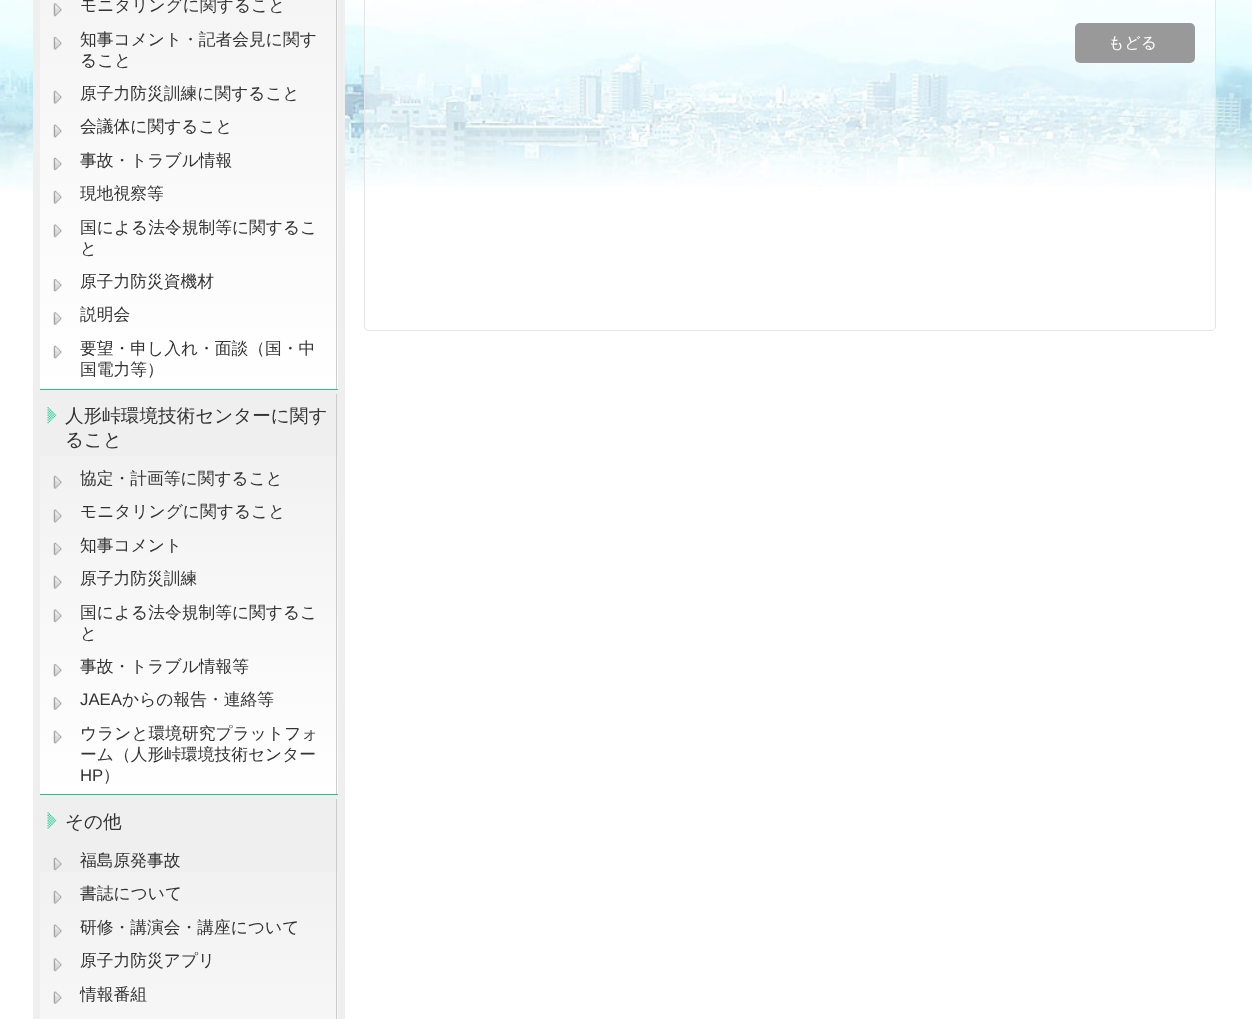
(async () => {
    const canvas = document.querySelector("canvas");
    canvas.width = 1252;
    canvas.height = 1019;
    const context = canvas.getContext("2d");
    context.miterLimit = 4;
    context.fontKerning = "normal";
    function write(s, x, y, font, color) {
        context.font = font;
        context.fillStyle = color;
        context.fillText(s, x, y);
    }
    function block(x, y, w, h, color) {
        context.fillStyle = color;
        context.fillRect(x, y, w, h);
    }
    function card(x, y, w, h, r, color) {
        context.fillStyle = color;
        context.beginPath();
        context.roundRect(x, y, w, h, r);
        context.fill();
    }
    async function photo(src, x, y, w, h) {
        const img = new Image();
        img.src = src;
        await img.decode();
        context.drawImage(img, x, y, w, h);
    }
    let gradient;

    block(0, 0, 1252, 1019, "rgb(255, 255, 255)");
    await photo("media/1.png", 0, 0, 1252, 192);
    block(33, 0, 312, 1019, "rgb(239, 239, 239)");
    gradient = context.createLinearGradient(188, -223, 188, 389);
    gradient.addColorStop(0, "rgb(239, 239, 239)");
    gradient.addColorStop(1, "rgb(255, 255, 255)");
    context.fillStyle = gradient;
    context.fillRect(40, 0, 298, 389);
    block(336, 0, 1, 390, "rgb(204, 204, 204)");
    block(40, 389, 298, 1, "rgb(37, 192, 135)");
    await photo("media/2.png", 53, 3, 9, 14);
    write("モニタリングに関すること", 80, 11, "500 16.75px WenQuanYi Zen Hei", "rgb(51, 51, 51)");
    await photo("media/3.png", 53, 36, 9, 14);
    write("知事コメント・記者会見に関す", 80, 45, "500 16.75px WenQuanYi Zen Hei", "rgb(51, 51, 51)");
    write("ること", 80, 66, "500 16.75px WenQuanYi Zen Hei", "rgb(51, 51, 51)");
    await photo("media/4.png", 53, 90, 9, 14);
    write("原子力防災訓練に関すること", 80, 99, "500 16.75px WenQuanYi Zen Hei", "rgb(51, 51, 51)");
    await photo("media/5.png", 53, 124, 9, 14);
    write("会議体に関すること", 80, 132, "500 16.75px WenQuanYi Zen Hei", "rgb(51, 51, 51)");
    await photo("media/6.png", 53, 157, 9, 14);
    write("事故・トラブル情報", 80, 166, "500 16.75px WenQuanYi Zen Hei", "rgb(51, 51, 51)");
    await photo("media/7.png", 53, 190, 9, 14);
    write("現地視察等", 80, 199, "500 16.75px WenQuanYi Zen Hei", "rgb(51, 51, 51)");
    await photo("media/8.png", 53, 224, 9, 14);
    write("国による法令規制等に関するこ", 80, 233, "500 16.75px WenQuanYi Zen Hei", "rgb(51, 51, 51)");
    write("と", 80, 254, "500 16.75px WenQuanYi Zen Hei", "rgb(51, 51, 51)");
    await photo("media/9.png", 53, 279, 9, 13);
    write("原子力防災資機材", 80, 287, "500 16.75px WenQuanYi Zen Hei", "rgb(51, 51, 51)");
    await photo("media/10.png", 53, 312, 9, 13);
    write("説明会", 80, 320, "500 16.75px WenQuanYi Zen Hei", "rgb(51, 51, 51)");
    await photo("media/11.png", 53, 345, 9, 14);
    write("要望・申し入れ・面談（国・中", 80, 354, "500 16.75px WenQuanYi Zen Hei", "rgb(51, 51, 51)");
    write("国電力等）", 80, 375, "500 16.75px WenQuanYi Zen Hei", "rgb(51, 51, 51)");
    gradient = context.createLinearGradient(188, 394, 188, 794);
    gradient.addColorStop(0, "rgb(239, 239, 239)");
    gradient.addColorStop(1, "rgb(255, 255, 255)");
    context.fillStyle = gradient;
    context.fillRect(40, 456, 298, 338);
    block(336, 394, 1, 401, "rgb(204, 204, 204)");
    block(40, 794, 298, 1, "rgb(37, 192, 135)");
    await photo("media/12.png", 47, 406, 11, 19);
    write("人形峠環境技術センターに関す", 65, 422, "500 18.6px WenQuanYi Zen Hei", "rgb(51, 51, 51)");
    write("ること", 65, 446, "500 18.6px WenQuanYi Zen Hei", "rgb(51, 51, 51)");
    await photo("media/13.png", 53, 475, 9, 14);
    write("協定・計画等に関すること", 80, 484, "500 16.75px WenQuanYi Zen Hei", "rgb(51, 51, 51)");
    await photo("media/14.png", 53, 509, 9, 14);
    write("モニタリングに関すること", 80, 517, "500 16.75px WenQuanYi Zen Hei", "rgb(51, 51, 51)");
    await photo("media/15.png", 53, 542, 9, 14);
    write("知事コメント", 80, 551, "500 16.75px WenQuanYi Zen Hei", "rgb(51, 51, 51)");
    await photo("media/16.png", 53, 575, 9, 14);
    write("原子力防災訓練", 80, 584, "500 16.75px WenQuanYi Zen Hei", "rgb(51, 51, 51)");
    await photo("media/17.png", 53, 609, 9, 14);
    write("国による法令規制等に関するこ", 80, 618, "500 16.75px WenQuanYi Zen Hei", "rgb(51, 51, 51)");
    write("と", 80, 639, "500 16.75px WenQuanYi Zen Hei", "rgb(51, 51, 51)");
    await photo("media/18.png", 53, 664, 9, 13);
    write("事故・トラブル情報等", 80, 672, "500 16.75px WenQuanYi Zen Hei", "rgb(51, 51, 51)");
    await photo("media/19.png", 53, 697, 9, 13);
    write("JAEA", 80, 705, "16.75px Liberation Sans", "rgb(51, 51, 51)");
    write("からの報告・連絡等", 122, 705, "500 16.75px WenQuanYi Zen Hei", "rgb(51, 51, 51)");
    await photo("media/20.png", 53, 730, 9, 14);
    write("ウランと環境研究プラットフォ", 80, 739, "500 16.75px WenQuanYi Zen Hei", "rgb(51, 51, 51)");
    write("ーム（人形峠環境技術センター", 80, 760, "500 16.75px WenQuanYi Zen Hei", "rgb(51, 51, 51)");
    write("HP", 80, 781, "16.75px Liberation Sans", "rgb(51, 51, 51)");
    write("）", 103, 781, "500 16.75px WenQuanYi Zen Hei", "rgb(51, 51, 51)");
    gradient = context.createLinearGradient(188, 799, 188, 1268);
    gradient.addColorStop(0, "rgb(239, 239, 239)");
    gradient.addColorStop(1, "rgb(255, 255, 255)");
    context.fillStyle = gradient;
    context.fillRect(40, 872, 298, 147);
    block(336, 799, 1, 220, "rgb(204, 204, 204)");
    await photo("media/21.png", 47, 811, 11, 19);
    write("その他", 65, 828, "500 18.6px WenQuanYi Zen Hei", "rgb(51, 51, 51)");
    await photo("media/22.png", 53, 857, 9, 14);
    write("福島原発事故", 80, 866, "500 16.75px WenQuanYi Zen Hei", "rgb(51, 51, 51)");
    await photo("media/23.png", 53, 890, 9, 14);
    write("書誌について", 80, 899, "500 16.75px WenQuanYi Zen Hei", "rgb(51, 51, 51)");
    await photo("media/24.png", 53, 924, 9, 14);
    write("研修・講演会・講座について", 80, 933, "500 16.75px WenQuanYi Zen Hei", "rgb(51, 51, 51)");
    await photo("media/25.png", 53, 958, 9, 14);
    write("原子力防災アプリ", 80, 966, "500 16.75px WenQuanYi Zen Hei", "rgb(51, 51, 51)");
    await photo("media/26.png", 53, 991, 9, 13);
    write("情報番組", 80, 1000, "500 16.75px WenQuanYi Zen Hei", "rgb(51, 51, 51)");
    card(364, -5, 852, 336, 5, "rgb(255, 255, 255)");
    await photo("media/27.png", 365, 0, 850, 187);
    context.beginPath();
    context.roundRect(364.5, -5.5, 851, 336, 4.5);
    context.strokeStyle = "rgb(230, 230, 230)";
    context.stroke();
    card(1075, 23, 120, 40, 5, "rgb(153, 153, 153)");
    write("もどる", 1108, 48, "500 16px WenQuanYi Zen Hei", "rgb(255, 255, 255)");
})();
